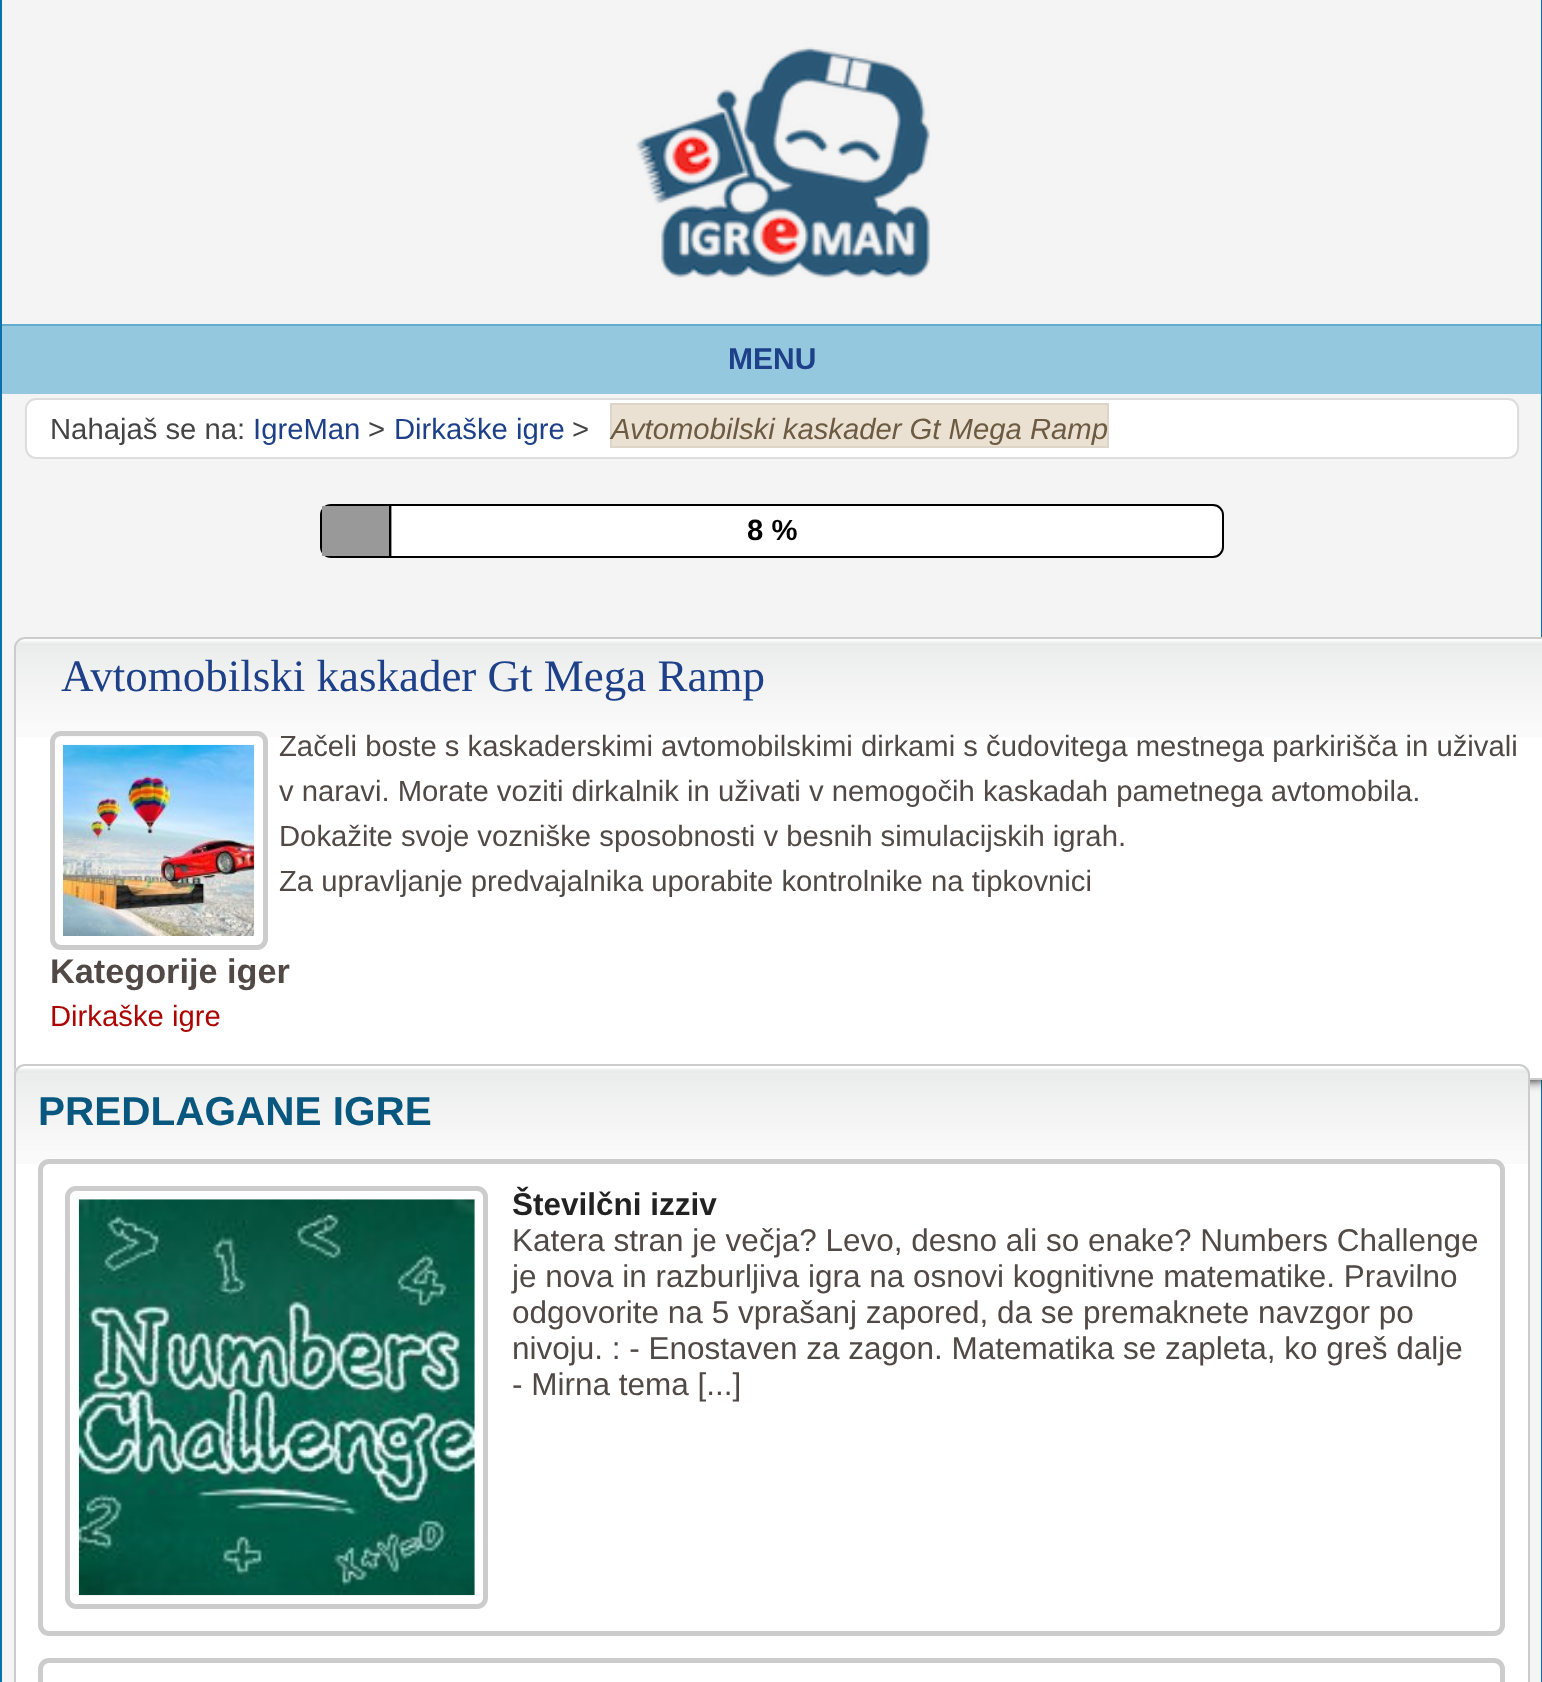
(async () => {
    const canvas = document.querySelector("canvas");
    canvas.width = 1542;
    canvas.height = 1682;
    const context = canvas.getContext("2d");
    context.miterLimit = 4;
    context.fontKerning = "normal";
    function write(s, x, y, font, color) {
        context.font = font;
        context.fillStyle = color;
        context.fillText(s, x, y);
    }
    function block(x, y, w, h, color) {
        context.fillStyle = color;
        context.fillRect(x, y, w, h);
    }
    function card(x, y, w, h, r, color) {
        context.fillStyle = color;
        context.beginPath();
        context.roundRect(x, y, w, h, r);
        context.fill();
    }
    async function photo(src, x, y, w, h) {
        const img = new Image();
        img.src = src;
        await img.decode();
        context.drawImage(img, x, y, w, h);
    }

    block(0, 0, 1542, 1682, "rgb(244, 244, 244)");
    block(1541, 0, 1, 1682, "rgb(5, 114, 171)");
    block(0, 0, 2, 1682, "rgb(5, 114, 171)");
    await photo("media/1.png", 635, 47, 296, 231);
    block(2, 326, 1539, 68, "rgb(148, 200, 223)");
    block(2, 324, 1539, 2, "rgb(100, 173, 206)");
    write("MENU", 728, 369, "bold 30px Liberation Sans", "rgb(29, 64, 136)");
    context.fillStyle = "rgb(255, 255, 255)";
    context.beginPath();
    context.roundRect(26, 399, 1492, 59, 10);
    context.fill();
    context.strokeStyle = "rgb(222, 220, 221)";
    context.lineWidth = 2;
    context.stroke();
    write("Nahajaš se na:", 50, 439, "29.25px Liberation Sans", "rgb(68, 68, 68)");
    write("IgreMan", 253, 439, "29.25px Liberation Sans", "rgb(29, 64, 136)");
    write(">", 368, 439, "29.25px Liberation Sans", "rgb(68, 68, 68)");
    write("Dirkaške igre", 394, 439, "29.25px Liberation Sans", "rgb(29, 64, 136)");
    write(">", 572, 439, "29.25px Liberation Sans", "rgb(68, 68, 68)");
    context.fillStyle = "rgb(235, 225, 210)";
    context.beginPath();
    context.rect(611, 404, 497, 43);
    context.fill();
    context.strokeStyle = "rgb(222, 213, 201)";
    context.stroke();
    write("Avtomobilski kaskader Gt Mega Ramp", 611, 439, "italic 29.25px Liberation Sans", "rgb(108, 91, 66)");
    context.fillStyle = "rgb(255, 255, 255)";
    context.beginPath();
    context.roundRect(321, 505, 902, 52, 10);
    context.fill();
    context.strokeStyle = "rgb(0, 0, 0)";
    context.stroke();
    block(322, 506, 70, 50, "rgb(153, 153, 153)");
    block(389, 506, 2, 50, "rgb(0, 0, 0)");
    write("8 %", 747, 540, "bold 29.25px Liberation Sans", "rgb(0, 0, 0)");
    context.filter = "blur(5.5px)";
    context.beginPath();
    context.rect(25, 659, 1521, 421);
    context.fill();
    context.filter = "none";
    card(14, 637, 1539, 443, 11, "rgb(255, 255, 255)");
    await photo("media/2.png", 14, 639, 1528, 98);
    context.beginPath();
    context.roundRect(15, 638, 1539, 441, 10);
    context.strokeStyle = "rgb(204, 204, 204)";
    context.stroke();
    write("Avtomobilski kaskader Gt Mega Ramp", 61, 691, "45px Liberation Serif", "rgb(29, 64, 136)");
    context.beginPath();
    context.roundRect(52.5, 733.5, 213, 214, 8.5);
    context.lineWidth = 5;
    context.stroke();
    await photo("media/3.png", 63, 744, 192, 192);
    write("Začeli boste s kaskaderskimi avtomobilskimi dirkami s čudovitega mestnega parkirišča in uživali", 279, 756, "29.25px Liberation Sans", "rgb(80, 73, 69)");
    write("v naravi. Morate voziti dirkalnik in uživati v nemogočih kaskadah pametnega avtomobila.", 279, 801, "29.25px Liberation Sans", "rgb(80, 73, 69)");
    write("Dokažite svoje vozniške sposobnosti v besnih simulacijskih igrah.", 279, 846, "29.25px Liberation Sans", "rgb(80, 73, 69)");
    write("Za upravljanje predvajalnika uporabite kontrolnike na tipkovnici", 279, 891, "29.25px Liberation Sans", "rgb(80, 73, 69)");
    write("Kategorije iger", 50, 983, "bold 34.25px Liberation Sans", "rgb(80, 73, 69)");
    write("Dirkaške igre", 50, 1026, "29.25px Liberation Sans", "rgb(172, 6, 4)");
    card(14, 1064, 1516, 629, 11, "rgb(255, 255, 255)");
    await photo("media/4.png", 14, 1068, 1516, 96);
    context.beginPath();
    context.roundRect(15, 1065, 1514, 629, 10);
    context.lineWidth = 2;
    context.stroke();
    write("PREDLAGANE IGRE", 38, 1125, "bold 40.5px Liberation Sans", "rgb(7, 87, 127)");
    context.beginPath();
    context.roundRect(40.5, 1161.5, 1462, 472, 8.5);
    context.lineWidth = 5;
    context.stroke();
    context.beginPath();
    context.roundRect(67.5, 1188.5, 418, 418, 8.5);
    context.stroke();
    await photo("media/5.png", 78, 1199, 397, 397);
    write("Številčni izziv", 512, 1215, "bold 31.5px Liberation Sans", "rgb(34, 34, 34)");
    write("Katera stran je večja? Levo, desno ali so enake? Numbers Challenge", 512, 1251, "31.5px Liberation Sans", "rgb(80, 73, 69)");
    write("je nova in razburljiva igra na osnovi kognitivne matematike. Pravilno", 512, 1287, "31.5px Liberation Sans", "rgb(80, 73, 69)");
    write("odgovorite na 5 vprašanj zapored, da se premaknete navzgor po", 512, 1323, "31.5px Liberation Sans", "rgb(80, 73, 69)");
    write("nivoju. : - Enostaven za zagon. Matematika se zapleta, ko greš dalje", 512, 1359, "31.5px Liberation Sans", "rgb(80, 73, 69)");
    write("- Mirna tema [...]", 512, 1395, "31.5px Liberation Sans", "rgb(80, 73, 69)");
    context.beginPath();
    context.roundRect(40.5, 1660.5, 1462, 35, 8.5);
    context.stroke();
})();
